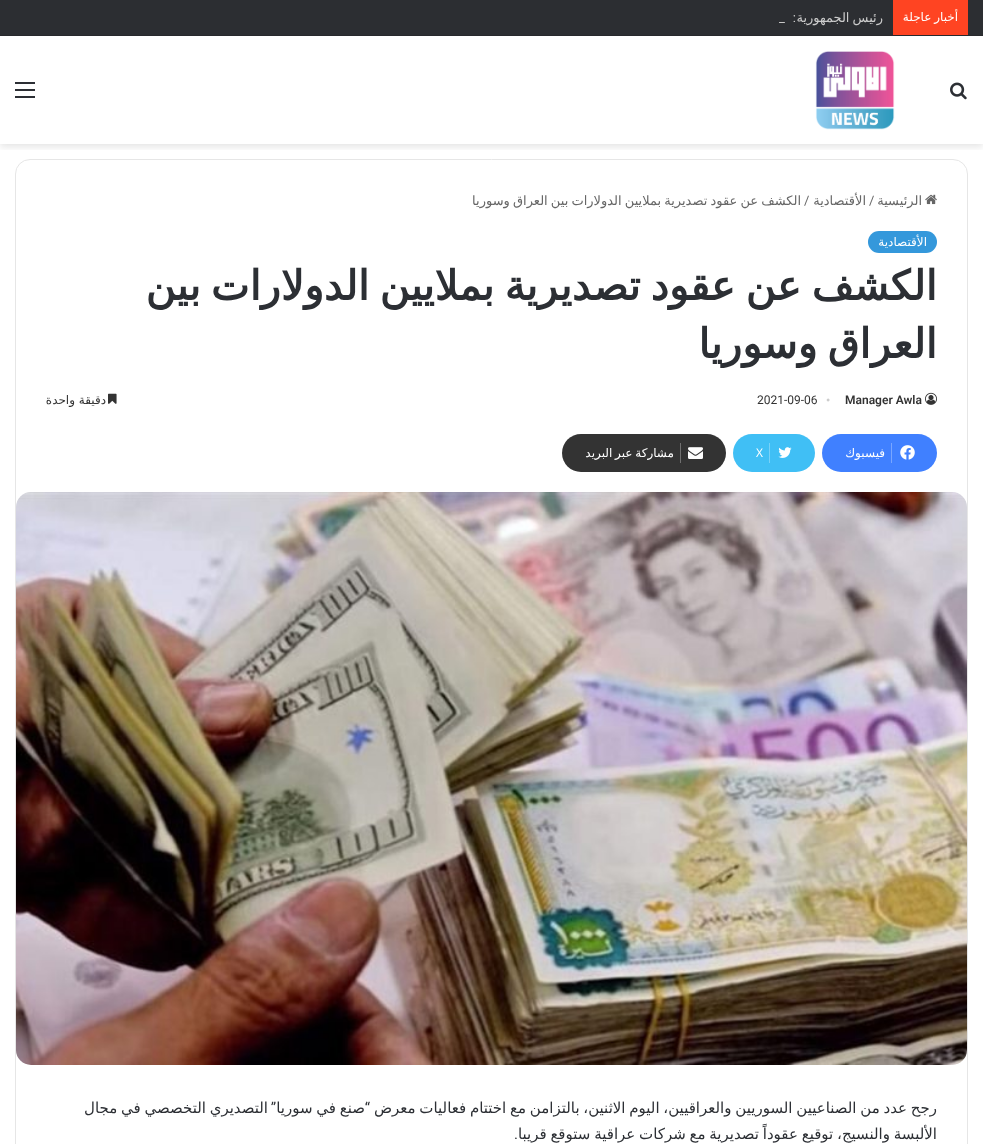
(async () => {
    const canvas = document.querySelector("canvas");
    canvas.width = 983;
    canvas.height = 1144;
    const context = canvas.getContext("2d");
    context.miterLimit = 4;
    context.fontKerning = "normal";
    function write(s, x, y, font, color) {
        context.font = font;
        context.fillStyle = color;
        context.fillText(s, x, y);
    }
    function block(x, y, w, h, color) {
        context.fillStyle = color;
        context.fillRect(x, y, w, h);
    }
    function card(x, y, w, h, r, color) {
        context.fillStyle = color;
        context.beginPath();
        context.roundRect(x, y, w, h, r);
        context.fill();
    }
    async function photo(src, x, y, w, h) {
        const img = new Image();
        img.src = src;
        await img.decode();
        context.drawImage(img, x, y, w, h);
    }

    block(0, 0, 983, 1144, "rgb(255, 255, 255)");
    context.save();
    context.beginPath();
    context.rect(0, 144, 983, 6);
    context.clip();
    context.fillStyle = "rgba(0, 0, 0, 0.1)";
    context.filter = "blur(3.5px)";
    context.beginPath();
    context.rect(0, 39, 983, 108);
    context.fill();
    context.filter = "none";
    context.restore();
    block(0, 0, 983, 35, "rgb(44, 46, 50)");
    block(0, 35, 983, 1, "rgb(40, 41, 45)");
    block(893, 0, 75, 35, "rgb(255, 68, 34)");
    context.wordSpacing = "-1px";
    context.direction = "rtl";
    write("أخبار عاجلة", 958, 21, "12px DejaVu Sans", "rgb(255, 255, 255)");
    write("رئيس الجمهورية", 883, 22, "13px DejaVu Sans", "rgb(204, 204, 204)");
    context.wordSpacing = "0px";
    write(":", 796, 22, "13px Roboto", "rgb(204, 204, 204)");
    context.direction = "ltr";
    write("_", 779, 22, "13px Roboto", "rgb(204, 204, 204)");
    await photo("media/1.png", 950, 82, 17, 18);
    await photo("media/2.png", 815, 51, 80, 79);
    block(15, 89, 20, 2, "rgb(44, 47, 52)");
    block(15, 82, 20, 2, "rgb(44, 47, 52)");
    block(15, 96, 20, 2, "rgb(44, 47, 52)");
    context.beginPath();
    context.roundRect(15.5, 159.5, 952, 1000, 14.5);
    context.strokeStyle = "rgb(230, 230, 230)";
    context.stroke();
    context.direction = "rtl";
    write("الأقتصادية", 866, 205, "13px DejaVu Sans", "rgb(102, 102, 102)");
    context.direction = "ltr";
    write("/", 804, 205, "13px Roboto", "rgb(102, 102, 102)");
    context.wordSpacing = "-1px";
    context.direction = "rtl";
    write("الكشف عن عقود تصديرية بملايين الدولارات بين العراق وسوريا", 801, 205, "13px DejaVu Sans", "rgb(102, 102, 102)");
    await photo("media/3.png", 925, 194, 12, 11);
    context.wordSpacing = "0px";
    write("الرئيسية", 922, 205, "13px DejaVu Sans", "rgb(102, 102, 102)");
    context.direction = "ltr";
    write("/", 869, 205, "13px Roboto", "rgb(102, 102, 102)");
    card(868, 231, 69, 22, 11, "rgb(52, 152, 219)");
    context.direction = "rtl";
    write("الأقتصادية", 927, 246, "12px DejaVu Sans", "rgb(255, 255, 255)");
    context.wordSpacing = "-2.75px";
    write("الكشف عن عقود تصديرية بملايين الدولارات بين", 937, 300, "bold 41px DejaVu Sans", "rgb(44, 47, 52)");
    write("العراق وسوريا", 937, 358, "bold 41px DejaVu Sans", "rgb(44, 47, 52)");
    await photo("media/4.png", 925, 392, 12, 13);
    context.wordSpacing = "0px";
    context.direction = "ltr";
    write("Manager Awla", 845, 404, "600 12px Roboto", "rgb(51, 51, 51)");
    write("•", 826, 404, "12px Liberation Serif", "rgb(204, 204, 204)");
    write("2021-09-06", 757, 404, "12px Roboto", "rgb(51, 51, 51)");
    await photo("media/5.png", 108, 393, 9, 11);
    context.direction = "rtl";
    write("دقيقة واحدة", 106, 404, "12px DejaVu Sans", "rgb(51, 51, 51)");
    card(822, 434, 115, 38, 19, "rgb(64, 128, 255)");
    await photo("media/6.png", 900, 445, 15, 15);
    block(891, 443, 1, 20, "rgb(121, 166, 255)");
    write("فيسبوك", 885, 457, "12px DejaVu Sans", "rgb(255, 255, 255)");
    card(733, 434, 82, 38, 19, "rgb(64, 191, 245)");
    await photo("media/7.png", 778, 447, 14, 11);
    block(769, 443, 1, 20, "rgb(121, 210, 248)");
    context.direction = "ltr";
    write("X", 756, 457, "12px Open Sans", "rgb(255, 255, 255)");
    card(562, 434, 164, 38, 19, "rgb(51, 51, 51)");
    await photo("media/8.png", 688, 447, 15, 12);
    block(680, 443, 1, 20, "rgb(112, 112, 112)");
    context.wordSpacing = "-1px";
    context.direction = "rtl";
    write("مشاركة عبر البريد", 674, 457, "12px DejaVu Sans", "rgb(255, 255, 255)");
    await photo("media/9.png", 16, 492, 951, 573);
    write("رجح عدد من الصناعيين السوريين والعراقيين، اليوم الاثنين، بالتزامن مع اختتام فعاليات معرض", 937, 1113, "15px DejaVu Sans", "rgb(44, 47, 52)");
    write("صنع في سوريا", 365, 1113, "15px DejaVu Sans", "rgb(44, 47, 52)");
    context.wordSpacing = "0px";
    write("“", 370, 1113, "15px Roboto", "rgb(44, 47, 52)");
    write("”", 276, 1113, "15px Roboto", "rgb(44, 47, 52)");
    context.wordSpacing = "-1px";
    write("التصديري التخصصي في مجال", 268, 1113, "15px DejaVu Sans", "rgb(44, 47, 52)");
    write("الألبسة والنسيج، توقيع عقوداً تصديرية مع شركات عراقية ستوقع قريبا", 937, 1139, "15px DejaVu Sans", "rgb(44, 47, 52)");
    context.wordSpacing = "0px";
    write(".", 518, 1139, "15px Roboto", "rgb(44, 47, 52)");
})();
